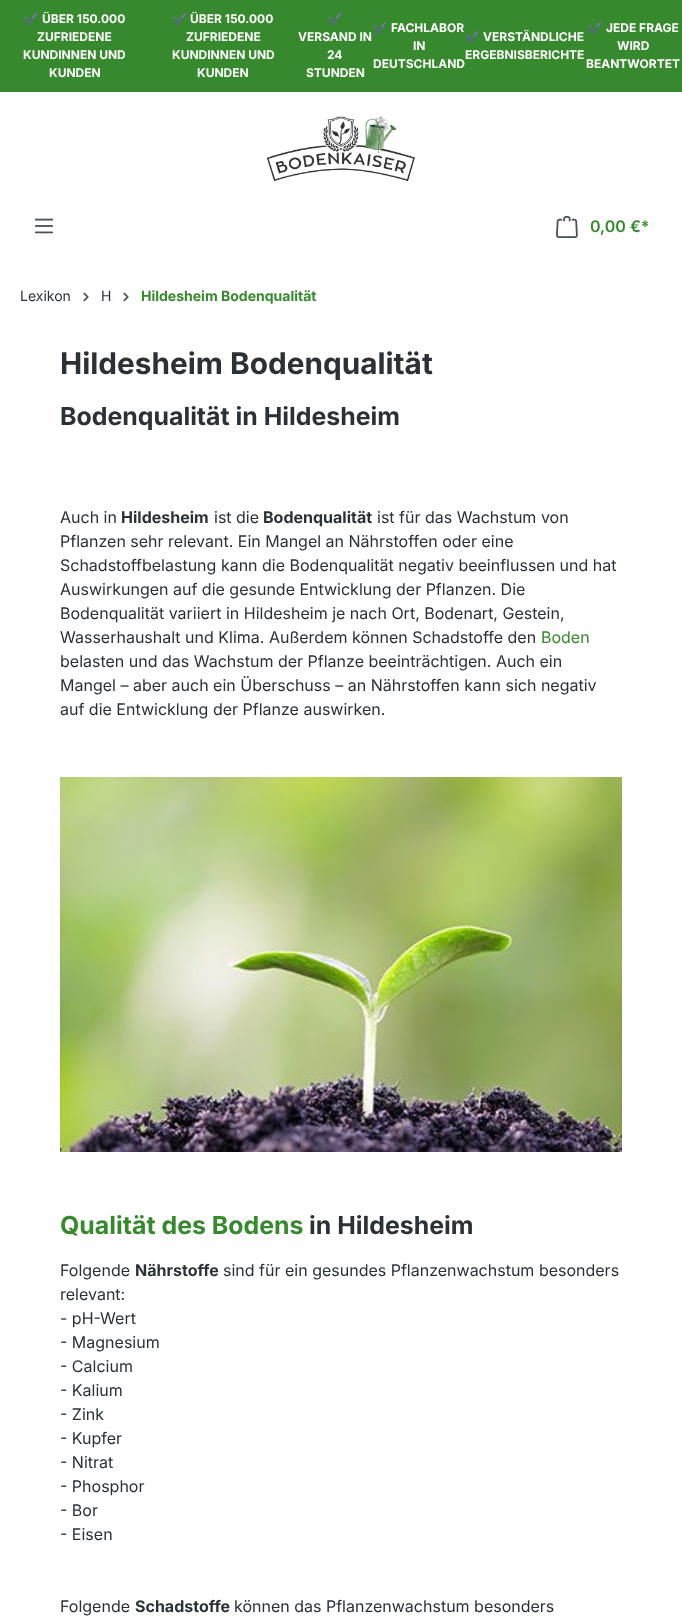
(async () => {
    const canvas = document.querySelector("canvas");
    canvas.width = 682;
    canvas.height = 1621;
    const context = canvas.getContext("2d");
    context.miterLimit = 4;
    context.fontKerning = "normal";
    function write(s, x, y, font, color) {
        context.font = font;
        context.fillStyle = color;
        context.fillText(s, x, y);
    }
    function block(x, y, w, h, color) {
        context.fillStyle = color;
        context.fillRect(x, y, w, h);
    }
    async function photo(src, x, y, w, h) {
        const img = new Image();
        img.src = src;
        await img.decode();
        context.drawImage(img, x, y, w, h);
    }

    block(0, 0, 682, 1621, "rgb(255, 255, 255)");
    block(0, 0, 682, 92, "rgb(54, 137, 44)");
    write("✔️", 24, 23, "bold 12px Noto Color Emoji", "rgb(255, 255, 255)");
    write("ÜBER 150.000", 42, 23, "bold 12px Inter", "rgb(255, 255, 255)");
    write("ZUFRIEDENE", 37, 41, "bold 12px Inter", "rgb(255, 255, 255)");
    write("KUNDINNEN UND", 23, 59, "bold 12px Inter", "rgb(255, 255, 255)");
    write("KUNDEN", 49, 77, "bold 12px Inter", "rgb(255, 255, 255)");
    write("✔️", 173, 23, "bold 12px Noto Color Emoji", "rgb(255, 255, 255)");
    write("ÜBER 150.000", 190, 23, "bold 12px Inter", "rgb(255, 255, 255)");
    write("ZUFRIEDENE", 186, 41, "bold 12px Inter", "rgb(255, 255, 255)");
    write("KUNDINNEN UND", 172, 59, "bold 12px Inter", "rgb(255, 255, 255)");
    write("KUNDEN", 197, 77, "bold 12px Inter", "rgb(255, 255, 255)");
    write("✔️", 328, 23, "bold 12px Noto Color Emoji", "rgb(255, 255, 255)");
    write("VERSAND IN", 298, 41, "bold 12px Inter", "rgb(255, 255, 255)");
    write("24", 327, 59, "bold 12px Inter", "rgb(255, 255, 255)");
    write("STUNDEN", 306, 77, "bold 12px Inter", "rgb(255, 255, 255)");
    write("✔️", 373, 32, "bold 12px Noto Color Emoji", "rgb(255, 255, 255)");
    write("FACHLABOR", 391, 32, "bold 12px Inter", "rgb(255, 255, 255)");
    write("IN", 413, 50, "bold 12px Inter", "rgb(255, 255, 255)");
    write("DEUTSCHLAND", 373, 68, "bold 12px Inter", "rgb(255, 255, 255)");
    write("✔️", 465, 41, "bold 12px Noto Color Emoji", "rgb(255, 255, 255)");
    write("VERSTÄNDLICHE", 483, 41, "bold 12px Inter", "rgb(255, 255, 255)");
    write("ERGEBNISBERICHTE", 465, 59, "bold 12px Inter", "rgb(255, 255, 255)");
    write("✔️", 588, 32, "bold 12px Noto Color Emoji", "rgb(255, 255, 255)");
    write("JEDE FRAGE", 606, 32, "bold 12px Inter", "rgb(255, 255, 255)");
    write("WIRD", 617, 50, "bold 12px Inter", "rgb(255, 255, 255)");
    write("BEANTWORTET", 586, 68, "bold 12px Inter", "rgb(255, 255, 255)");
    await photo("media/1.png", 266, 116, 149, 66);
    await photo("media/2.png", 34, 218, 20, 16);
    await photo("media/3.png", 556, 216, 22, 22);
    write("0,00 €*", 590, 232, "600 16px Inter", "rgb(54, 137, 44)");
    write("Lexikon", 20, 301, "14px Inter", "rgb(43, 49, 54)");
    await photo("media/4.png", 83, 292, 6, 10);
    write("H", 101, 301, "14px Inter", "rgb(43, 49, 54)");
    await photo("media/4.png", 123, 292, 6, 10);
    write("Hildesheim Bodenqualität", 141, 301, "bold 14px Inter", "rgb(54, 137, 44)");
    write("Hildesheim Bodenqualität", 60, 374, "bold 29.75px Inter", "rgb(43, 49, 54)");
    write("Bodenqualität in Hildesheim", 60, 425, "bold 24.9px Inter", "rgb(43, 49, 54)");
    write("Auch in", 60, 523, "16px Inter", "rgb(43, 49, 54)");
    write("Hildesheim", 121, 523, "bold 16px Inter", "rgb(43, 49, 54)");
    write("ist die", 214, 523, "16px Inter", "rgb(43, 49, 54)");
    write("Bodenqualität", 263, 523, "bold 16px Inter", "rgb(43, 49, 54)");
    write("ist für das Wachstum von", 377, 523, "16px Inter", "rgb(43, 49, 54)");
    write("Pflanzen sehr relevant. Ein Mangel an Nährstoffen oder eine", 60, 547, "16px Inter", "rgb(43, 49, 54)");
    write("Schadstoffbelastung kann die Bodenqualität negativ beeinflussen und hat", 60, 571, "16px Inter", "rgb(43, 49, 54)");
    write("Auswirkungen auf die gesunde Entwicklung der Pflanzen. Die", 60, 595, "16px Inter", "rgb(43, 49, 54)");
    write("Bodenqualität variiert in Hildesheim je nach Ort, Bodenart, Gestein,", 60, 619, "16px Inter", "rgb(43, 49, 54)");
    write("Wasserhaushalt und Klima. Außerdem können Schadstoffe den", 60, 643, "16px Inter", "rgb(43, 49, 54)");
    write("Boden", 541, 643, "16px Inter", "rgb(54, 137, 44)");
    write("belasten und das Wachstum der Pflanze beeinträchtigen. Auch ein", 60, 667, "16px Inter", "rgb(43, 49, 54)");
    write("Mangel – aber auch ein Überschuss – an Nährstoffen kann sich negativ", 60, 691, "16px Inter", "rgb(43, 49, 54)");
    write("auf die Entwicklung der Pflanze auswirken.", 60, 715, "16px Inter", "rgb(43, 49, 54)");
    await photo("media/5.png", 60, 777, 562, 375);
    write("Qualität des Bodens", 60, 1234, "bold 24.9px Inter", "rgb(54, 137, 44)");
    write("in Hildesheim", 309, 1234, "bold 24.9px Inter", "rgb(43, 49, 54)");
    write("Folgende", 60, 1276, "16px Inter", "rgb(43, 49, 54)");
    write("Nährstoffe", 135, 1276, "bold 16px Inter", "rgb(43, 49, 54)");
    write("sind für ein gesundes Pflanzenwachstum besonders", 223, 1276, "16px Inter", "rgb(43, 49, 54)");
    write("relevant:", 60, 1300, "16px Inter", "rgb(43, 49, 54)");
    write("- pH-Wert", 60, 1324, "16px Inter", "rgb(43, 49, 54)");
    write("- Magnesium", 60, 1348, "16px Inter", "rgb(43, 49, 54)");
    write("- Calcium", 60, 1372, "16px Inter", "rgb(43, 49, 54)");
    write("- Kalium", 60, 1396, "16px Inter", "rgb(43, 49, 54)");
    write("- Zink", 60, 1420, "16px Inter", "rgb(43, 49, 54)");
    write("- Kupfer", 60, 1444, "16px Inter", "rgb(43, 49, 54)");
    write("- Nitrat", 60, 1468, "16px Inter", "rgb(43, 49, 54)");
    write("- Phosphor", 60, 1492, "16px Inter", "rgb(43, 49, 54)");
    write("- Bor", 60, 1516, "16px Inter", "rgb(43, 49, 54)");
    write("- Eisen", 60, 1540, "16px Inter", "rgb(43, 49, 54)");
    write("Folgende", 60, 1612, "16px Inter", "rgb(43, 49, 54)");
    write("Schadstoffe", 135, 1612, "bold 16px Inter", "rgb(43, 49, 54)");
    write("können das Pflanzenwachstum besonders", 234, 1612, "16px Inter", "rgb(43, 49, 54)");
})();
